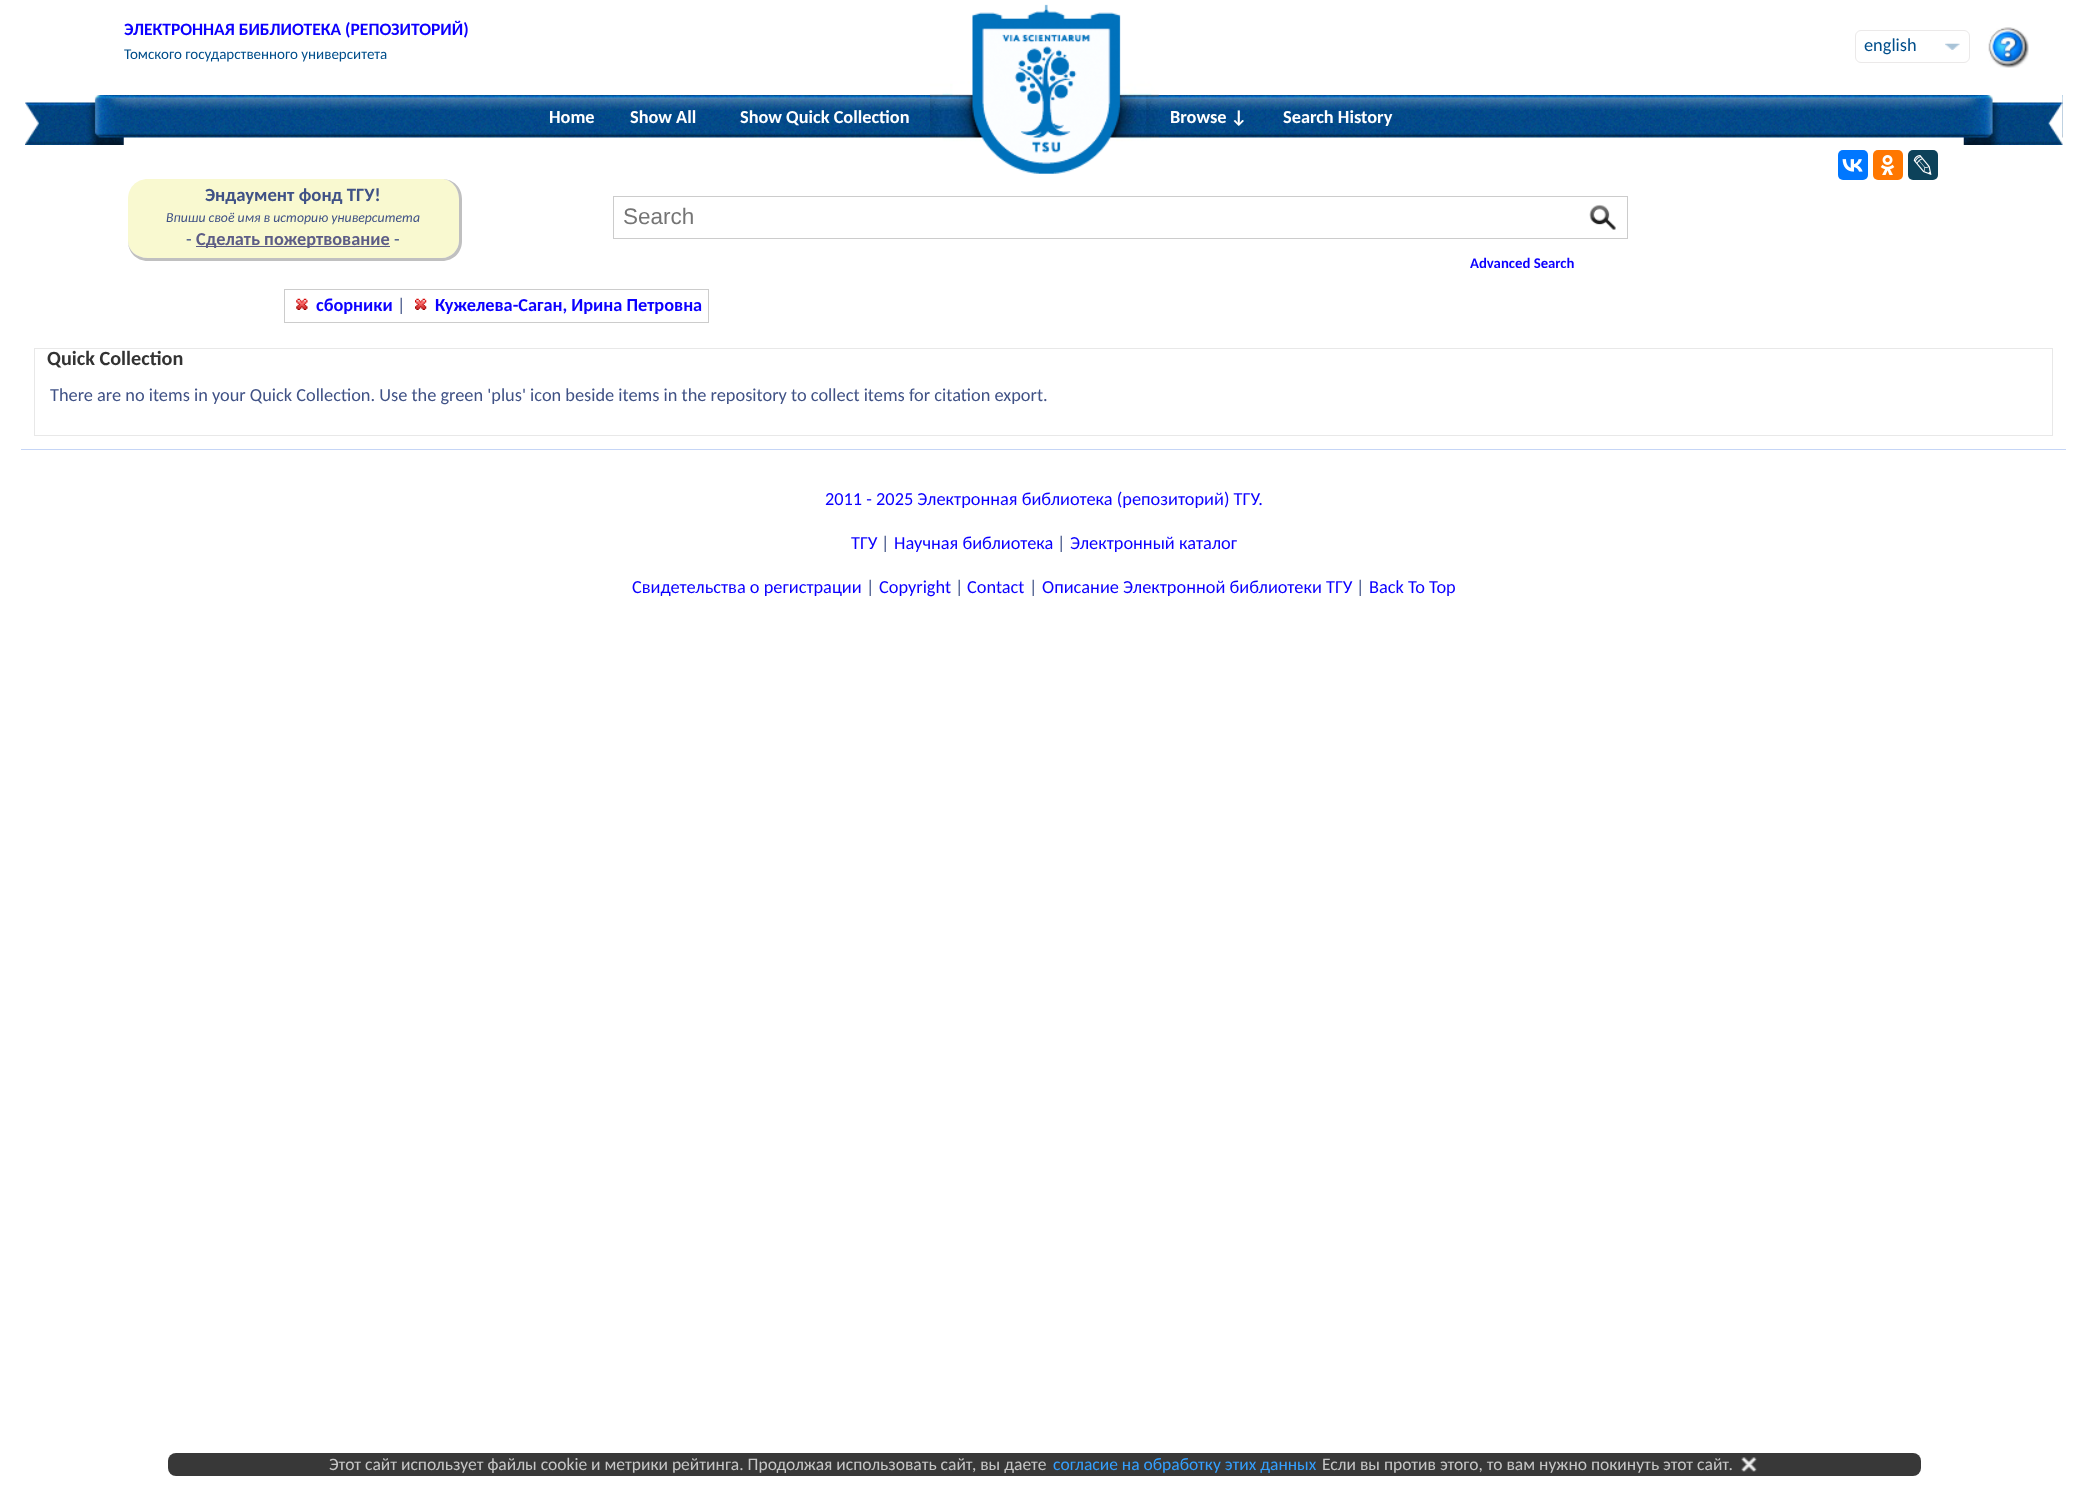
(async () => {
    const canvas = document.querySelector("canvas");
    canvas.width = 2087;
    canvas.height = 1485;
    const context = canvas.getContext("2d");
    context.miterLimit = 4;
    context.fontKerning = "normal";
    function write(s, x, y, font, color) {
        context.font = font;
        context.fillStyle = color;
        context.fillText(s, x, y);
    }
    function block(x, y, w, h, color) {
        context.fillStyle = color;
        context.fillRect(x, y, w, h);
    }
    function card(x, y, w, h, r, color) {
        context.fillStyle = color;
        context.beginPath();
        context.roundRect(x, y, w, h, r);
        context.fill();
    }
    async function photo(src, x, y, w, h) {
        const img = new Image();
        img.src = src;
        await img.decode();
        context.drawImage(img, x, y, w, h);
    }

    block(0, 0, 2087, 1485, "rgb(255, 255, 255)");
    write("ЭЛЕКТРОННАЯ БИБЛИОТЕКА (РЕПОЗИТОРИЙ)", 124, 35, "bold 17.5px Carlito", "rgb(12, 0, 255)");
    write("Томского государственного университета", 124, 59, "15px Carlito", "rgb(0, 78, 139)");
    context.beginPath();
    context.roundRect(1855.5, 30.5, 114, 32, 5.5);
    context.strokeStyle = "rgb(235, 233, 233)";
    context.stroke();
    await photo("media/1.png", 1945, 43, 15, 7);
    write("english", 1864, 51, "18.33px Carlito", "rgb(0, 78, 139)");
    await photo("media/2.png", 1988, 27, 41, 41);
    await photo("media/4.png", 143, 95, 1920, 43);
    await photo("media/3.png", 25, 95, 119, 50);
    write("Home", 549, 123, "bold 18.33px Carlito", "rgb(255, 255, 255)");
    write("Show All", 630, 123, "bold 18.33px Carlito", "rgb(255, 255, 255)");
    write("Show Quick Collection", 740, 123, "bold 18.33px Carlito", "rgb(255, 255, 255)");
    await photo("media/5.png", 930, 4, 229, 170);
    write("Browse ↓", 1170, 123, "bold 18.33px Carlito", "rgb(255, 255, 255)");
    write("Search History", 1283, 123, "bold 18.33px Carlito", "rgb(255, 255, 255)");
    await photo("media/6.png", 1943, 95, 120, 50);
    context.fillStyle = "rgb(249, 249, 208)";
    context.beginPath();
    context.moveTo(148, 179);
    context.lineTo(442, 179);
    context.bezierCurveTo(451, 179, 459, 188, 459, 199);
    context.lineTo(459, 241);
    context.bezierCurveTo(459, 250, 451, 258, 442, 258);
    context.lineTo(148, 258);
    context.bezierCurveTo(136, 258, 128, 250, 128, 241);
    context.lineTo(128, 199);
    context.bezierCurveTo(128, 188, 136, 179, 148, 179);
    context.closePath();
    context.fill();
    context.fillStyle = "rgb(192, 192, 192)";
    context.beginPath();
    context.moveTo(148, 179);
    context.lineTo(442, 179);
    context.bezierCurveTo(454, 179, 462, 188, 462, 199);
    context.lineTo(462, 241);
    context.bezierCurveTo(462, 252, 454, 261, 442, 261);
    context.lineTo(148, 261);
    context.bezierCurveTo(136, 261, 128, 252, 128, 241);
    context.lineTo(128, 199);
    context.bezierCurveTo(128, 188, 136, 179, 148, 179);
    context.closePath();
    context.moveTo(148, 179);
    context.lineTo(442, 179);
    context.bezierCurveTo(451, 179, 459, 188, 459, 199);
    context.lineTo(459, 241);
    context.bezierCurveTo(459, 250, 451, 258, 442, 258);
    context.lineTo(148, 258);
    context.bezierCurveTo(136, 258, 128, 250, 128, 241);
    context.lineTo(128, 199);
    context.bezierCurveTo(128, 188, 136, 179, 148, 179);
    context.closePath();
    context.fill("evenodd");
    write("Эндаумент фонд ТГУ!", 205, 201, "bold 18.75px Carlito", "rgb(64, 82, 134)");
    write("Впиши своё имя в историю университета", 166, 222, "italic 13.75px Carlito", "rgb(64, 82, 134)");
    write("-", 186, 245, "18.33px Carlito", "rgb(64, 82, 134)");
    block(196, 246, 194, 1, "rgb(93, 93, 134)");
    write("Сделать пожертвование", 196, 245, "bold 18.33px Carlito", "rgb(93, 93, 134)");
    write("-", 394, 245, "18.33px Carlito", "rgb(64, 82, 134)");
    context.strokeStyle = "rgb(204, 204, 204)";
    context.strokeRect(613.5, 196.5, 1014, 42);
    write("Search", 623, 224, "22.5px Liberation Sans", "rgb(117, 117, 117)");
    await photo("media/7.png", 1589, 204, 27, 26);
    write("Advanced Search", 1470, 268, "bold 14.75px Carlito", "rgb(12, 0, 255)");
    context.strokeRect(284.5, 289.5, 424, 33);
    await photo("media/8.png", 296, 298, 12, 12);
    write("сборники", 316, 311, "bold 18.33px Carlito", "rgb(12, 0, 255)");
    write("|", 397, 311, "18.33px Carlito", "rgb(64, 82, 134)");
    await photo("media/9.png", 415, 298, 12, 12);
    write("Кужелева-Саган, Ирина Петровна", 435, 311, "bold 18.33px Carlito", "rgb(12, 0, 255)");
    card(1838, 150, 30, 30, 5, "rgb(0, 119, 255)");
    await photo("media/10.png", 1842, 159, 21, 13);
    card(1873, 150, 30, 30, 5, "rgb(255, 119, 0)");
    await photo("media/11.png", 1880, 155, 15, 20);
    card(1908, 150, 30, 30, 5, "rgb(13, 66, 90)");
    await photo("media/12.png", 1913, 155, 19, 20);
    context.strokeStyle = "rgb(232, 232, 232)";
    context.strokeRect(34.5, 348.5, 2018, 87);
    write("Quick Collection", 47, 365, "bold 20.25px Carlito", "rgb(51, 51, 51)");
    write("There are no items in your Quick Collection. Use the green 'plus' icon beside items in the repository to collect items for citation export.", 50, 401, "18.33px Carlito", "rgb(64, 82, 134)");
    block(21, 449, 2045, 1, "rgb(197, 213, 246)");
    write("2011 - 2025 Электронная библиотека (репозиторий) ТГУ.", 825, 505, "18.33px Carlito", "rgb(12, 0, 255)");
    write("ТГУ", 851, 549, "18.33px Carlito", "rgb(12, 0, 255)");
    write("|", 881, 549, "18.33px Carlito", "rgb(64, 82, 134)");
    write("Научная библиотека", 894, 549, "18.33px Carlito", "rgb(12, 0, 255)");
    write("|", 1057, 549, "18.33px Carlito", "rgb(64, 82, 134)");
    write("Электронный каталог", 1070, 549, "18.33px Carlito", "rgb(12, 0, 255)");
    write("Свидетельства о регистрации", 632, 593, "18.33px Carlito", "rgb(12, 0, 255)");
    write("|", 866, 593, "18.33px Carlito", "rgb(64, 82, 134)");
    write("Copyright", 879, 593, "18.33px Carlito", "rgb(12, 0, 255)");
    write("|", 955, 593, "18.33px Carlito", "rgb(64, 82, 134)");
    write("Contact", 967, 593, "18.33px Carlito", "rgb(12, 0, 255)");
    write("|", 1029, 593, "18.33px Carlito", "rgb(64, 82, 134)");
    write("Описание Электронной библиотеки ТГУ", 1042, 593, "18.33px Carlito", "rgb(12, 0, 255)");
    write("|", 1356, 593, "18.33px Carlito", "rgb(64, 82, 134)");
    write("Back To Top", 1369, 593, "18.33px Carlito", "rgb(12, 0, 255)");
    card(168, 1453, 1753, 23, 8, "rgb(56, 56, 56)");
    write("Этот сайт использует файлы cookie и метрики рейтинга. Продолжая использовать сайт, вы даете", 329, 1470, "17.5px Carlito", "rgb(199, 199, 199)");
    write("согласие на обработку этих данных", 1053, 1470, "17.5px Carlito", "rgb(52, 160, 255)");
    write("Если вы против этого, то вам нужно покинуть этот сайт.", 1322, 1470, "17.5px Carlito", "rgb(199, 199, 199)");
    await photo("media/13.png", 1741, 1457, 16, 15);
})();
